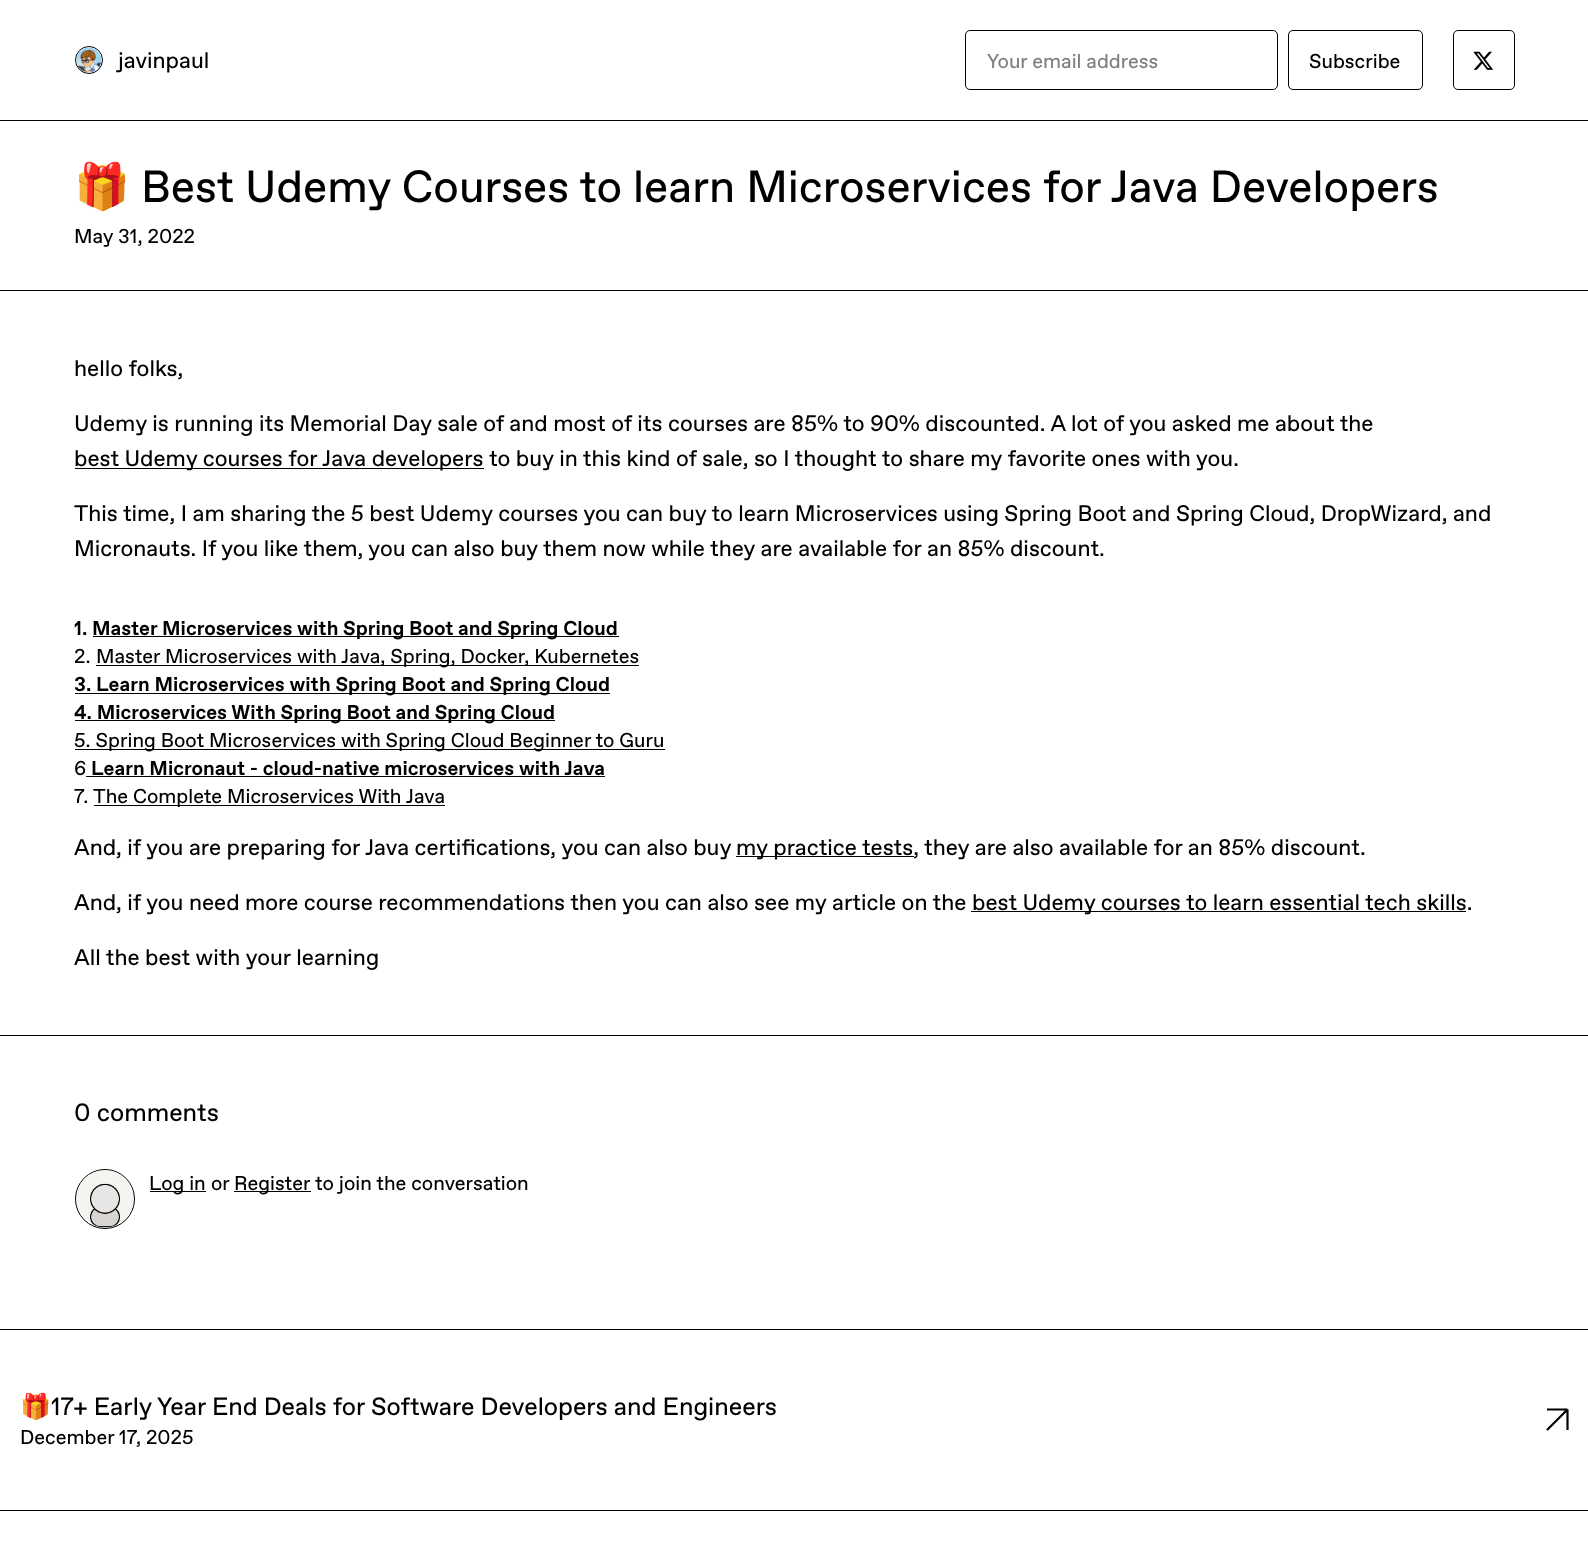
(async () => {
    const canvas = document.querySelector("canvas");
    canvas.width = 1588;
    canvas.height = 1567;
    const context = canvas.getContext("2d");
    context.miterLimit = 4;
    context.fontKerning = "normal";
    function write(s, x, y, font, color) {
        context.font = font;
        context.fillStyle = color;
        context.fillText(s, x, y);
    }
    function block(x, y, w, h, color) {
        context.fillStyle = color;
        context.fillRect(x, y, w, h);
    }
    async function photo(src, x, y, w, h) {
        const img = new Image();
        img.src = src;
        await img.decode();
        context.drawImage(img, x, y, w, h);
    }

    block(0, 0, 1588, 1567, "rgb(255, 255, 255)");
    block(0, 120, 1588, 1, "rgb(0, 0, 0)");
    context.beginPath();
    context.arc(89, 60, 13.5, 0, Math.PI * 2);
    context.strokeStyle = "rgb(0, 0, 0)";
    context.stroke();
    await photo("media/1.png", 76, 47, 26, 26);
    write("javinpaul", 118, 68, "22.5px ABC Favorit", "rgb(0, 0, 0)");
    context.beginPath();
    context.roundRect(965.5, 30.5, 312, 59, 4.5);
    context.stroke();
    write("Your email address", 987, 68, "20px ABC Favorit", "rgb(128, 128, 128)");
    context.beginPath();
    context.roundRect(1288.5, 30.5, 134, 59, 4.5);
    context.stroke();
    write("Subscribe", 1309, 68, "20px ABC Favorit", "rgb(0, 0, 0)");
    context.beginPath();
    context.roundRect(1453.5, 30.5, 61, 59, 4.5);
    context.stroke();
    await photo("media/2.png", 1473, 51, 21, 19);
    block(0, 290, 1588, 1, "rgb(0, 0, 0)");
    write("🎁", 74, 202, "45px Noto Color Emoji", "rgb(0, 0, 0)");
    write("Best Udemy Courses to learn Microservices for Java Developers", 141, 202, "45px ABC Favorit", "rgb(0, 0, 0)");
    write("May 31, 2022", 74, 243, "20px ABC Favorit", "rgb(0, 0, 0)");
    block(0, 1035, 1588, 1, "rgb(0, 0, 0)");
    write("hello folks,", 74, 376, "22.5px ABC Favorit", "rgb(0, 0, 0)");
    write("Udemy is running its Memorial Day sale of and most of its courses are 85% to 90% discounted. A lot of you asked me about the", 74, 431, "22.5px ABC Favorit", "rgb(0, 0, 0)");
    block(75, 468, 409, 1, "rgb(0, 0, 0)");
    write("best Udemy courses for Java developers", 74, 466, "22.5px ABC Favorit", "rgb(0, 0, 0)");
    write("to buy in this kind of sale, so I thought to share my favorite ones with you.", 489, 466, "22.5px ABC Favorit", "rgb(0, 0, 0)");
    write("This time, I am sharing the 5 best Udemy courses you can buy to learn Microservices using Spring Boot and Spring Cloud, DropWizard, and", 74, 521, "22.5px ABC Favorit", "rgb(0, 0, 0)");
    write("Micronauts. If you like them, you can also buy them now while they are available for an 85% discount.", 74, 556, "22.5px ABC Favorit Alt", "rgb(0, 0, 0)");
    write("1.", 74, 635, "bold 20px ABC Favorit", "rgb(0, 0, 0)");
    block(93, 636, 526, 1, "rgb(0, 0, 0)");
    write("Master Microservices with Spring Boot and Spring Cloud", 92, 635, "bold 20px ABC Favorit", "rgb(0, 0, 0)");
    write("2.", 74, 663, "20px ABC Favorit", "rgb(0, 0, 0)");
    block(96, 665, 543, 1, "rgb(0, 0, 0)");
    write("Master Microservices with Java, Spring, Docker, Kubernetes", 96, 663, "20px ABC Favorit", "rgb(0, 0, 0)");
    block(75, 693, 535, 1, "rgb(0, 0, 0)");
    write("3. Learn Microservices with Spring Boot and Spring Cloud", 74, 691, "bold 20px ABC Favorit", "rgb(0, 0, 0)");
    block(75, 720, 480, 1, "rgb(0, 0, 0)");
    write("4. Microservices With Spring Boot and Spring Cloud", 74, 719, "bold 20px ABC Favorit", "rgb(0, 0, 0)");
    block(75, 749, 590, 1, "rgb(0, 0, 0)");
    write("5. Spring Boot Microservices with Spring Cloud Beginner to Guru", 74, 747, "20px ABC Favorit", "rgb(0, 0, 0)");
    write("6", 74, 775, "20px ABC Favorit", "rgb(0, 0, 0)");
    write("Learn Micronaut - cloud-native microservices with Java", 91, 775, "bold 20px ABC Favorit", "rgb(0, 0, 0)");
    block(86, 776, 519, 1, "rgb(0, 0, 0)");
    write("7.", 74, 803, "20px ABC Favorit", "rgb(0, 0, 0)");
    block(94, 805, 351, 1, "rgb(0, 0, 0)");
    write("The Complete Microservices With Java", 93, 803, "20px ABC Favorit", "rgb(0, 0, 0)");
    write("And, if you are preparing for Java certifications, you can also buy", 74, 855, "22.5px ABC Favorit", "rgb(0, 0, 0)");
    block(736, 856, 178, 1, "rgb(0, 0, 0)");
    write("my practice tests, they are also available for an 85% discount.", 736, 855, "22.5px ABC Favorit", "rgb(0, 0, 0)");
    write("And, if you need more course recommendations then you can also see my article on the", 74, 910, "22.5px ABC Favorit", "rgb(0, 0, 0)");
    block(971, 911, 495, 1, "rgb(0, 0, 0)");
    write("best Udemy courses to learn essential tech skills.", 972, 910, "22.5px ABC Favorit", "rgb(0, 0, 0)");
    write("All the best with your learning", 74, 965, "22.5px ABC Favorit", "rgb(0, 0, 0)");
    block(0, 1329, 1588, 1, "rgb(0, 0, 0)");
    write("0 comments", 74, 1121, "25px ABC Favorit", "rgb(0, 0, 0)");
    context.beginPath();
    context.arc(105, 1199, 29.5, 0, Math.PI * 2);
    context.stroke();
    await photo("media/3.png", 77, 1170, 56, 58);
    block(150, 1191, 56, 1, "rgb(0, 0, 0)");
    write("Log in", 149, 1190, "20px ABC Favorit", "rgb(0, 0, 0)");
    write("or", 211, 1190, "20px ABC Favorit", "rgb(0, 0, 0)");
    block(234, 1191, 77, 1, "rgb(0, 0, 0)");
    write("Register", 234, 1190, "20px ABC Favorit", "rgb(0, 0, 0)");
    write("to join the conversation", 315, 1190, "20px ABC Favorit", "rgb(0, 0, 0)");
    block(0, 1510, 1588, 1, "rgb(0, 0, 0)");
    write("🎁", 20, 1415, "25px Noto Color Emoji", "rgb(0, 0, 0)");
    write("17+ Early Year End Deals for Software Developers and Engineers", 51, 1415, "25px ABC Favorit", "rgb(0, 0, 0)");
    write("December 17, 2025", 20, 1444, "20px ABC Favorit", "rgb(0, 0, 0)");
    context.beginPath();
    context.moveTo(1547, 1430);
    context.lineTo(1567.5, 1409.5);
    context.moveTo(1567.5, 1409.5);
    context.lineTo(1547, 1409.5);
    context.moveTo(1567.5, 1409.5);
    context.lineTo(1567.5, 1430);
    context.lineWidth = 2.2;
    context.stroke();
})();
